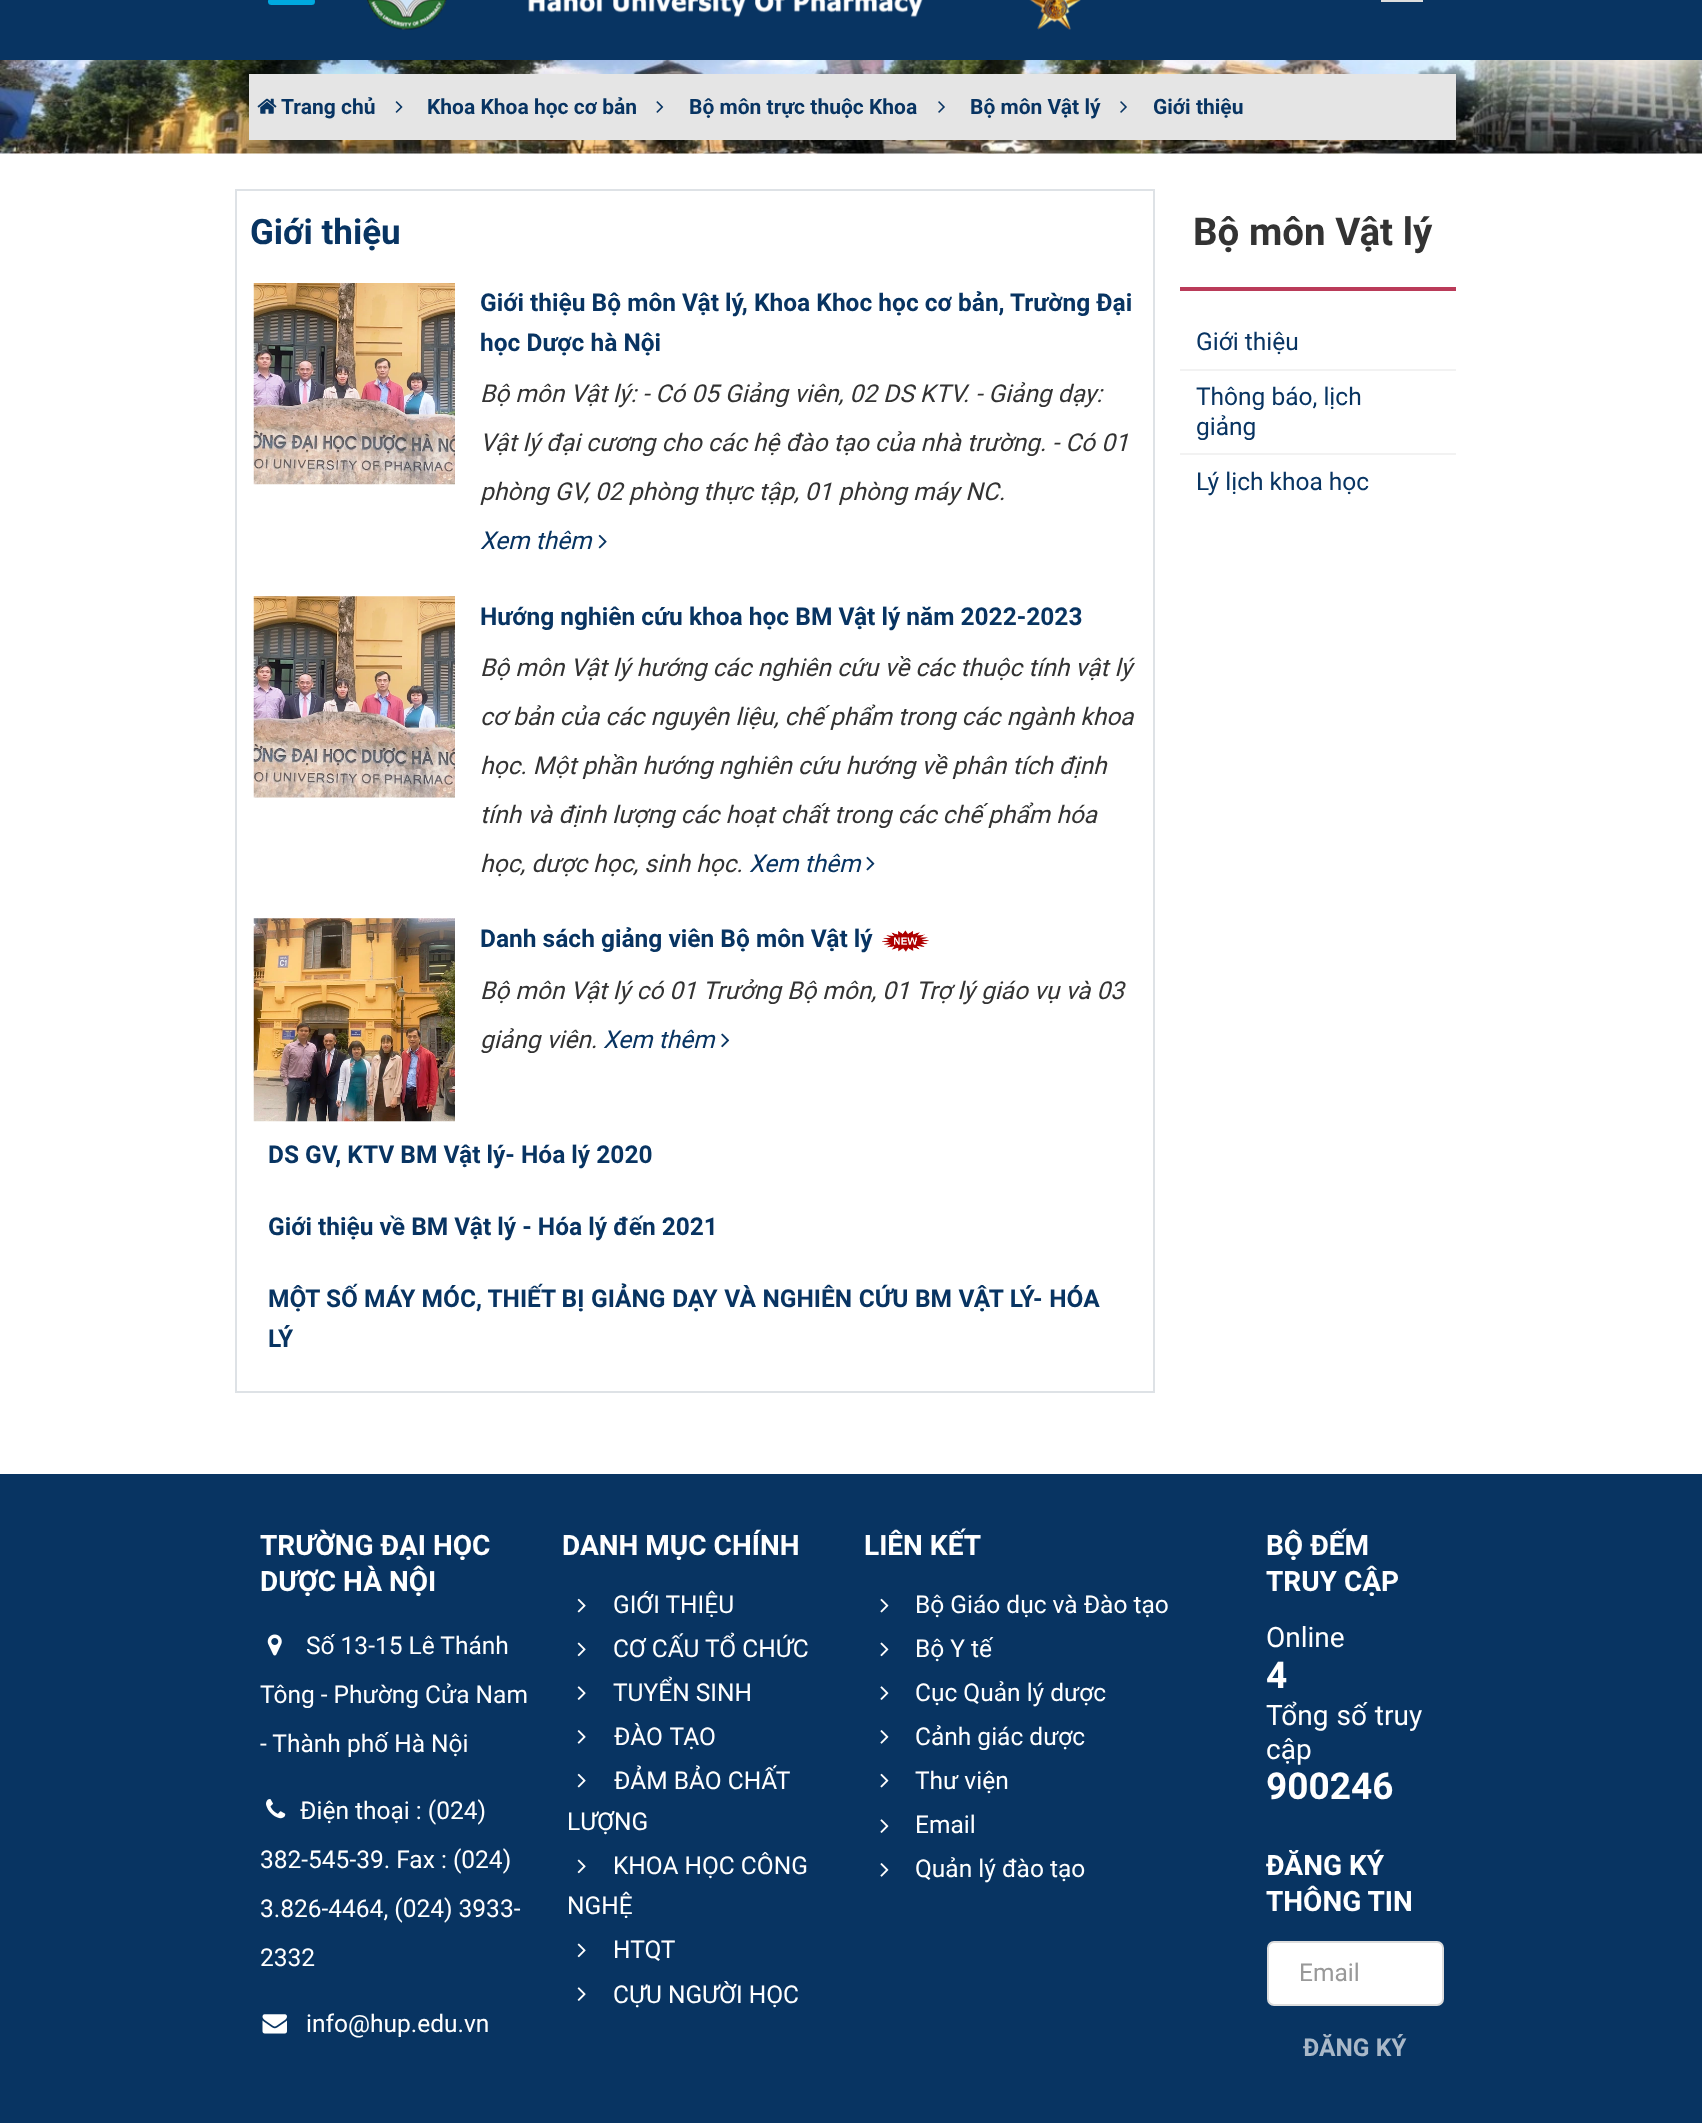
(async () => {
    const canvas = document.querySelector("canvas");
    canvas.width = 1702;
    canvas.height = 2123;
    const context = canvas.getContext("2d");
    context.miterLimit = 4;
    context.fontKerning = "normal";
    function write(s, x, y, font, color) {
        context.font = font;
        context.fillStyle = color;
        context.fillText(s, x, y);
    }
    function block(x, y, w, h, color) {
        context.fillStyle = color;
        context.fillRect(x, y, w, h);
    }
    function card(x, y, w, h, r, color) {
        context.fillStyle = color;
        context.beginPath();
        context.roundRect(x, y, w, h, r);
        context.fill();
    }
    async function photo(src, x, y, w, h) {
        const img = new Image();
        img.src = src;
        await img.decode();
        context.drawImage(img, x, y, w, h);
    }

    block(0, 0, 1702, 2123, "rgb(255, 255, 255)");
    block(0, 0, 1702, 60, "rgb(8, 52, 98)");
    card(268, -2, 47, 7, 3.5, "rgb(0, 169, 224)");
    await photo("media/1.png", 367, 0, 714, 30);
    context.strokeStyle = "rgb(221, 221, 221)";
    context.lineWidth = 2;
    context.strokeRect(1382, -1, 40, 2);
    await photo("media/2.png", 0, 60, 1702, 94);
    block(249, 74, 1207, 66, "rgb(229, 229, 229)");
    await photo("media/3.png", 257, 98, 20, 16);
    write("Trang chủ", 281, 114, "bold 21px Roboto", "rgb(8, 52, 98)");
    await photo("media/4.png", 395, 101, 8, 12);
    write("Khoa Khoa học cơ bản", 427, 114, "bold 21px Roboto", "rgb(8, 52, 98)");
    await photo("media/5.png", 656, 101, 8, 12);
    write("Bộ môn trực thuộc Khoa", 689, 114, "bold 21px Roboto", "rgb(8, 52, 98)");
    await photo("media/6.png", 938, 101, 7, 12);
    write("Bộ môn Vật lý", 970, 114, "bold 21px Roboto", "rgb(8, 52, 98)");
    await photo("media/6.png", 1120, 101, 7, 12);
    write("Giới thiệu", 1153, 114, "bold 21px Roboto", "rgb(8, 52, 98)");
    context.strokeStyle = "rgb(222, 226, 230)";
    context.strokeRect(236, 190, 918, 1202);
    write("Giới thiệu", 250, 244, "bold 35px Roboto", "rgb(8, 52, 98)");
    await photo("media/7.png", 253, 283, 202, 202);
    write("Giới thiệu Bộ môn Vật lý, Khoa Khoc học cơ bản, Trường Đại", 480, 311, "bold 24.5px Roboto", "rgb(8, 52, 98)");
    write("học Dược hà Nội", 480, 351, "bold 24.5px Roboto", "rgb(8, 52, 98)");
    write("Bộ môn Vật lý: - Có 05 Giảng viên, 02 DS KTV. - Giảng dạy:", 480, 402, "italic 24.5px Roboto", "rgb(51, 51, 51)");
    write("Vật lý đại cương cho các hệ đào tạo của nhà trường. - Có 01", 480, 451, "italic 24.5px Roboto", "rgb(51, 51, 51)");
    write("phòng GV, 02 phòng thực tập, 01 phòng máy NC.", 480, 500, "italic 24.5px Roboto", "rgb(51, 51, 51)");
    write("Xem thêm", 480, 549, "italic 24.5px Roboto", "rgb(8, 52, 98)");
    await photo("media/8.png", 598, 534, 9, 15);
    await photo("media/9.png", 253, 596, 202, 202);
    write("Hướng nghiên cứu khoa học BM Vật lý năm 2022-2023", 480, 625, "bold 24.5px Roboto", "rgb(8, 52, 98)");
    write("Bộ môn Vật lý hướng các nghiên cứu về các thuộc tính vật lý", 480, 676, "italic 24.5px Roboto", "rgb(51, 51, 51)");
    write("cơ bản của các nguyên liệu, chế phẩm trong các ngành khoa", 480, 725, "italic 24.5px Roboto", "rgb(51, 51, 51)");
    write("học. Một phần hướng nghiên cứu hướng về phân tích định", 480, 774, "italic 24.5px Roboto", "rgb(51, 51, 51)");
    write("tính và định lượng các hoạt chất trong các chế phẩm hóa", 480, 823, "italic 24.5px Roboto", "rgb(51, 51, 51)");
    write("học, dược học, sinh học.", 480, 872, "italic 24.5px Roboto", "rgb(51, 51, 51)");
    write("Xem thêm", 749, 872, "italic 24.5px Roboto", "rgb(8, 52, 98)");
    await photo("media/10.png", 866, 856, 9, 15);
    await photo("media/11.png", 253, 918, 202, 204);
    write("Danh sách giảng viên Bộ môn Vật lý", 480, 947, "bold 24.5px Roboto", "rgb(8, 52, 98)");
    await photo("media/12.png", 882, 930, 47, 22);
    write("Bộ môn Vật lý có 01 Trưởng Bộ môn, 01 Trợ lý giáo vụ và 03", 480, 999, "italic 24.5px Roboto", "rgb(51, 51, 51)");
    write("giảng viên.", 480, 1048, "italic 24.5px Roboto", "rgb(51, 51, 51)");
    write("Xem thêm", 603, 1048, "italic 24.5px Roboto", "rgb(8, 52, 98)");
    await photo("media/13.png", 721, 1033, 9, 15);
    write("DS GV, KTV BM Vật lý- Hóa lý 2020", 268, 1163, "bold 24.5px Roboto", "rgb(8, 52, 98)");
    write("Giới thiệu về BM Vật lý - Hóa lý đến 2021", 268, 1235, "bold 24.5px Roboto", "rgb(8, 52, 98)");
    write("MỘT SỐ MÁY MÓC, THIẾT BỊ", 268, 1307, "bold 24.5px Roboto", "rgb(8, 52, 98)");
    context.wordSpacing = "0.5px";
    write("GIẢNG DẠY VÀ NGHIÊN CỨU BM VẬT LÝ- HÓA", 591, 1307, "bold 24.5px Roboto", "rgb(8, 52, 98)");
    context.wordSpacing = "0px";
    write("LÝ", 268, 1347, "bold 24.5px Roboto", "rgb(8, 52, 98)");
    write("Bộ môn Vật lý", 1193, 245, "bold 38.5px Roboto", "rgb(51, 51, 51)");
    block(1180, 287, 276, 4, "rgb(186, 59, 89)");
    block(1180, 369, 276, 2, "rgb(242, 242, 242)");
    write("Giới thiệu", 1196, 350, "24.5px Roboto", "rgb(8, 52, 98)");
    block(1180, 453, 276, 2, "rgb(242, 242, 242)");
    write("Thông báo, lịch", 1196, 405, "24.5px Roboto", "rgb(8, 52, 98)");
    write("giảng", 1196, 435, "24.5px Roboto", "rgb(8, 52, 98)");
    write("Lý lịch khoa học", 1196, 490, "24.5px Roboto", "rgb(8, 52, 98)");
    block(0, 1474, 1702, 649, "rgb(8, 52, 98)");
    write("TRƯỜNG ĐẠI HỌC", 260, 1555, "bold 28px Roboto", "rgb(255, 255, 255)");
    write("DƯỢC HÀ NỘI", 260, 1591, "bold 28px Roboto", "rgb(255, 255, 255)");
    await photo("media/14.png", 267, 1634, 15, 22);
    write("Số 13-15 Lê Thánh", 306, 1654, "24.5px Roboto", "rgb(255, 255, 255)");
    write("Tông - Phường Cửa Nam", 260, 1703, "24.5px Roboto", "rgb(255, 255, 255)");
    write("- Thành phố Hà Nội", 260, 1752, "24.5px Roboto", "rgb(255, 255, 255)");
    await photo("media/15.png", 266, 1799, 20, 20);
    write("Điện thoại : (024)", 300, 1819, "24.5px Roboto", "rgb(255, 255, 255)");
    write("382-545-39. Fax : (024)", 260, 1868, "24.5px Roboto", "rgb(255, 255, 255)");
    write("3.826-4464, (024) 3933-", 260, 1917, "24.5px Roboto", "rgb(255, 255, 255)");
    write("2332", 260, 1966, "24.5px Roboto", "rgb(255, 255, 255)");
    await photo("media/16.png", 262, 2014, 25, 20);
    write("info@hup.edu.vn", 306, 2032, "24.5px Roboto", "rgb(255, 255, 255)");
    write("DANH MỤC CHÍNH", 562, 1555, "bold 28px Roboto", "rgb(255, 255, 255)");
    await photo("media/17.png", 577, 1598, 9, 15);
    write("GIỚI THIỆU", 613, 1613, "24.5px Roboto", "rgb(255, 255, 255)");
    await photo("media/18.png", 577, 1642, 9, 15);
    write("CƠ CẤU TỔ CHỨC", 613, 1657, "24.5px Roboto", "rgb(255, 255, 255)");
    await photo("media/19.png", 577, 1686, 9, 14);
    write("TUYỂN SINH", 613, 1701, "24.5px Roboto", "rgb(255, 255, 255)");
    await photo("media/20.png", 577, 1730, 9, 14);
    context.wordSpacing = "1px";
    write("ĐÀO TẠO", 614, 1745, "24.5px Roboto", "rgb(255, 255, 255)");
    await photo("media/17.png", 577, 1773, 9, 15);
    context.wordSpacing = "0px";
    write("ĐẢM BẢO CHẤT", 614, 1789, "24.5px Roboto", "rgb(255, 255, 255)");
    write("LƯỢNG", 567, 1830, "24.5px Roboto", "rgb(255, 255, 255)");
    await photo("media/18.png", 577, 1859, 9, 15);
    write("KHOA HỌC CÔNG", 613, 1874, "24.5px Roboto", "rgb(255, 255, 255)");
    write("NGHỆ", 567, 1914, "24.5px Roboto", "rgb(255, 255, 255)");
    await photo("media/18.png", 577, 1943, 9, 15);
    write("HTQT", 613, 1958, "24.5px Roboto", "rgb(255, 255, 255)");
    await photo("media/19.png", 577, 1987, 9, 14);
    write("CỰU NGƯỜI HỌC", 613, 2003, "24.5px Roboto", "rgb(255, 255, 255)");
    write("LIÊN KẾT", 864, 1555, "bold 28px Roboto", "rgb(255, 255, 255)");
    await photo("media/21.png", 880, 1598, 9, 15);
    write("Bộ Giáo dục và Đào tạo", 915, 1613, "24.5px Roboto", "rgb(255, 255, 255)");
    await photo("media/22.png", 880, 1642, 9, 15);
    write("Bộ Y tế", 915, 1657, "24.5px Roboto", "rgb(255, 255, 255)");
    await photo("media/23.png", 880, 1686, 9, 14);
    write("Cục Quản lý dược", 915, 1701, "24.5px Roboto", "rgb(255, 255, 255)");
    await photo("media/24.png", 880, 1730, 9, 14);
    write("Cảnh giác dược", 915, 1745, "24.5px Roboto", "rgb(255, 255, 255)");
    await photo("media/21.png", 880, 1773, 9, 15);
    write("Thư viện", 915, 1789, "24.5px Roboto", "rgb(255, 255, 255)");
    await photo("media/23.png", 880, 1819, 9, 14);
    write("Email", 915, 1833, "24.5px Roboto", "rgb(255, 255, 255)");
    await photo("media/24.png", 880, 1863, 9, 14);
    write("Quản lý đào tạo", 915, 1877, "24.5px Roboto", "rgb(255, 255, 255)");
    write("BỘ ĐẾM", 1266, 1555, "bold 28px Roboto", "rgb(255, 255, 255)");
    write("TRUY CẬP", 1266, 1591, "bold 28px Roboto", "rgb(255, 255, 255)");
    write("Online", 1266, 1647, "28px Roboto", "rgb(255, 255, 255)");
    write("4", 1266, 1688, "bold 37px Roboto", "rgb(255, 255, 255)");
    context.wordSpacing = "1px";
    write("Tổng số truy", 1266, 1725, "28px Roboto", "rgb(255, 255, 255)");
    context.wordSpacing = "0px";
    write("cập", 1266, 1759, "28px Roboto", "rgb(255, 255, 255)");
    write("900246", 1266, 1799, "bold 37px Roboto", "rgb(255, 255, 255)");
    write("ĐĂNG KÝ", 1266, 1875, "bold 28px Roboto", "rgb(255, 255, 255)");
    write("THÔNG TIN", 1266, 1911, "bold 28px Roboto", "rgb(255, 255, 255)");
    context.beginPath();
    context.roundRect(1268, 1942, 175, 63, 6);
    context.fill();
    context.strokeStyle = "rgb(221, 221, 221)";
    context.stroke();
    write("Email", 1299, 1981, "24.5px Roboto", "rgb(153, 153, 153)");
    write("ĐĂNG KÝ", 1303, 2056, "bold 24.5px Roboto", "rgb(169, 184, 200)");
})();
